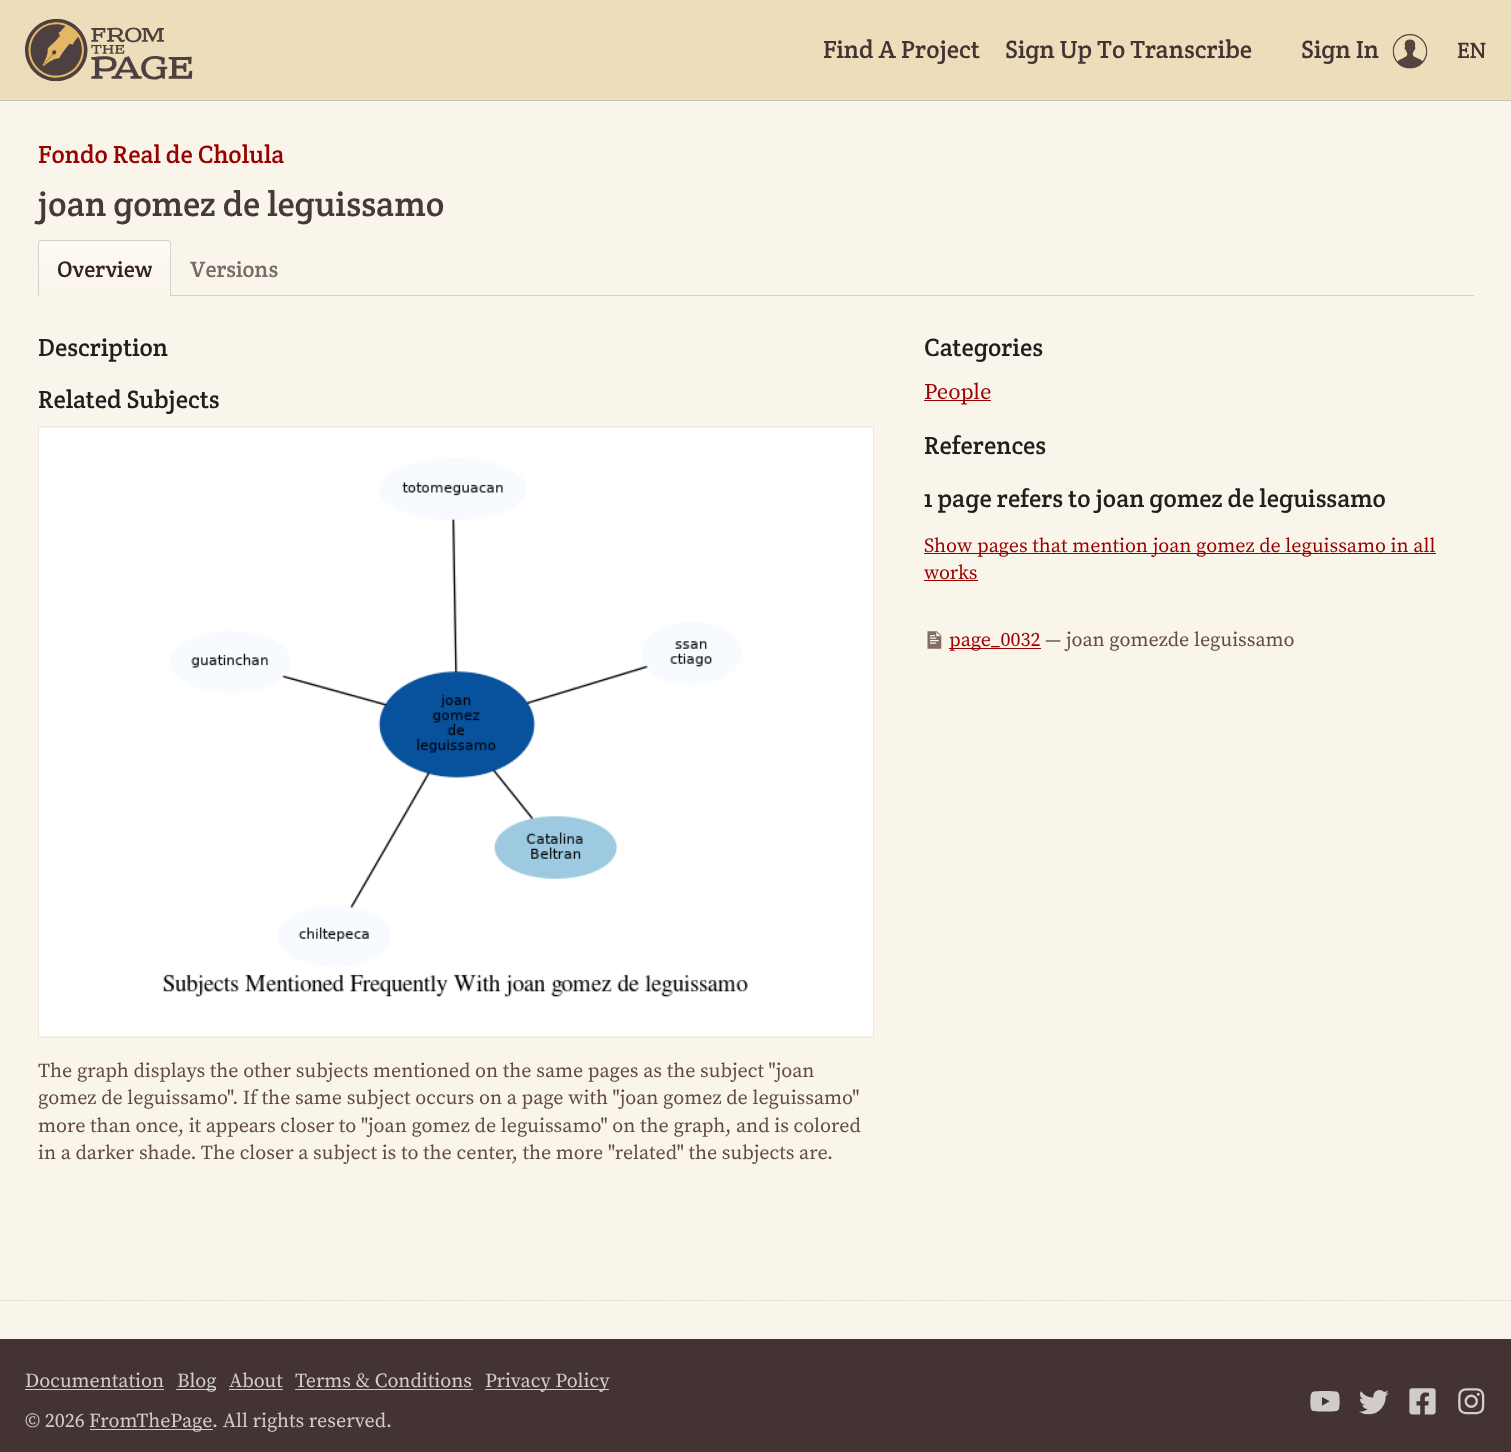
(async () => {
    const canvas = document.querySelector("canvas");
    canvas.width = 1511;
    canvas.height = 1452;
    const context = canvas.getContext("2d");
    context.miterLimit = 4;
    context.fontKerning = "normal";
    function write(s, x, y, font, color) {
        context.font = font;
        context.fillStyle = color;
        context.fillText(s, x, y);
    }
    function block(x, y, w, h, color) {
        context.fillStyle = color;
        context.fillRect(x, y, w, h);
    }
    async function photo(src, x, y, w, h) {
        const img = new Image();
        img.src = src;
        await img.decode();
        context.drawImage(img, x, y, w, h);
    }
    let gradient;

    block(0, 0, 1511, 1452, "rgb(250, 245, 235)");
    block(0, 100, 1511, 1, "rgb(200, 196, 188)");
    block(0, 0, 1511, 100, "rgb(238, 221, 187)");
    await photo("media/1.png", 25, 18, 168, 64);
    write("Find A Project", 823, 58, "25px Crete Round", "rgb(68, 51, 51)");
    write("Sign Up To Transcribe", 1005, 58, "25px Crete Round", "rgb(68, 51, 51)");
    write("Sign In", 1301, 58, "25px Crete Round", "rgb(68, 51, 51)");
    await photo("media/2.png", 1392, 34, 36, 35);
    write("EN", 1457, 58, "22.5px Crete Round", "rgb(68, 51, 51)");
    write("Fondo Real de Cholula", 38, 163, "25px Crete Round", "rgb(153, 0, 0)");
    write("joan gomez de leguissamo", 38, 216, "35px Crete Round", "rgb(69, 57, 57)");
    block(171, 295, 1303, 1, "rgb(213, 208, 200)");
    context.save();
    context.beginPath();
    context.roundRect(38, 240, 133, 56, [4, 4, 0, 0]);
    context.clip();
    gradient = context.createLinearGradient(104, 241, 104, 296);
    gradient.addColorStop(0, "rgb(253, 250, 245)");
    gradient.addColorStop(1, "rgb(250, 245, 235)");
    context.fillStyle = gradient;
    context.fillRect(38, 241, 133, 55);
    context.restore();
    context.fillStyle = "rgba(0, 0, 0, 0.15)";
    context.beginPath();
    context.moveTo(41, 240);
    context.lineTo(168, 240);
    context.bezierCurveTo(170, 240, 171, 242, 171, 244);
    context.lineTo(171, 296);
    context.lineTo(38, 296);
    context.lineTo(38, 244);
    context.bezierCurveTo(38, 242, 39, 240, 41, 240);
    context.closePath();
    context.moveTo(41, 241);
    context.lineTo(168, 241);
    context.bezierCurveTo(169, 241, 170, 242, 170, 244);
    context.lineTo(170, 296);
    context.lineTo(39, 296);
    context.lineTo(39, 244);
    context.bezierCurveTo(39, 242, 40, 241, 41, 241);
    context.closePath();
    context.fill("evenodd");
    write("Overview", 57, 277, "22.5px Crete Round", "rgb(51, 34, 34)");
    write("Versions", 190, 277, "22.5px Crete Round", "rgb(121, 108, 104)");
    write("Description", 38, 356, "25px Crete Round", "rgb(35, 29, 29)");
    write("Related Subjects", 38, 408, "25px Crete Round", "rgb(35, 29, 29)");
    block(39, 428, 834, 608, "rgb(255, 255, 255)");
    context.strokeStyle = "rgb(235, 230, 221)";
    context.strokeRect(38.5, 426.5, 835, 611);
    await photo("media/3.png", 162, 458, 586, 540);
    write("The graph displays the other subjects mentioned on the same pages as the subject \"joan", 38, 1077, "20px Source Serif Pro", "rgb(99, 74, 71)");
    write("gomez de leguissamo\". If the same subject occurs on a page with \"joan gomez de leguissamo\"", 38, 1104, "20px Source Serif Pro", "rgb(99, 74, 71)");
    write("more than once, it appears closer to \"joan gomez de leguissamo\" on the graph, and is colored", 38, 1132, "20px Source Serif Pro", "rgb(99, 74, 71)");
    write("in a darker shade. The closer a subject is to the center, the more \"related\" the subjects are.", 38, 1159, "20px Source Serif Pro", "rgb(99, 74, 71)");
    write("Categories", 924, 356, "25px Crete Round", "rgb(35, 29, 29)");
    block(924, 400, 67, 1, "rgb(153, 0, 0)");
    write("People", 924, 399, "22.5px Source Serif Pro", "rgb(153, 0, 0)");
    write("References", 924, 454, "25px Crete Round", "rgb(35, 29, 29)");
    write("1 page refers to joan gomez de leguissamo", 924, 507, "25px Crete Round", "rgb(35, 29, 29)");
    block(924, 553, 512, 1, "rgb(153, 0, 0)");
    write("Show pages that mention joan gomez de leguissamo in all", 924, 552, "20px Source Serif Pro", "rgb(153, 0, 0)");
    write("works", 924, 579, "20px Source Serif Pro", "rgb(153, 0, 0)");
    block(924, 580, 54, 1, "rgb(153, 0, 0)");
    await photo("media/4.png", 927, 631, 15, 18);
    block(949, 648, 92, 1, "rgb(153, 0, 0)");
    write("page_0032", 949, 646, "20px Source Serif Pro", "rgb(153, 0, 0)");
    write("— joan gomezde leguissamo", 1045, 646, "20px Source Serif Pro", "rgb(99, 74, 71)");
    context.beginPath();
    context.moveTo(0, 1300.5);
    context.lineTo(1511, 1300.5);
    context.strokeStyle = "rgb(213, 208, 200)";
    context.lineWidth = 1.2;
    context.setLineDash([1.25, 1.25]);
    context.stroke();
    block(0, 1339, 1511, 113, "rgb(68, 51, 51)");
    write("Documentation", 25, 1387, "20px Source Serif Pro", "rgb(208, 204, 204)");
    block(25, 1389, 139, 1, "rgb(208, 204, 204)");
    block(176, 1389, 40, 1, "rgb(208, 204, 204)");
    write("Blog", 177, 1387, "20px Source Serif Pro", "rgb(208, 204, 204)");
    write("About", 229, 1387, "20px Source Serif Pro", "rgb(208, 204, 204)");
    block(229, 1389, 54, 1, "rgb(208, 204, 204)");
    write("Terms & Conditions", 295, 1387, "20px Source Serif Pro", "rgb(208, 204, 204)");
    block(295, 1389, 178, 1, "rgb(208, 204, 204)");
    block(485, 1389, 124, 1, "rgb(208, 204, 204)");
    write("Privacy Policy", 485, 1387, "20px Source Serif Pro", "rgb(208, 204, 204)");
    write("© 2026", 25, 1427, "20px Source Serif Pro", "rgb(208, 204, 204)");
    block(90, 1429, 123, 1, "rgb(208, 204, 204)");
    write("FromThePage", 89, 1427, "20px Source Serif Pro", "rgb(208, 204, 204)");
    write(". All rights reserved.", 212, 1427, "20px Source Serif Pro", "rgb(208, 204, 204)");
    await photo("media/5.png", 1310, 1391, 30, 21);
    await photo("media/6.png", 1359, 1390, 30, 25);
    await photo("media/7.png", 1409, 1388, 27, 27);
    await photo("media/8.png", 1458, 1388, 27, 27);
})();
